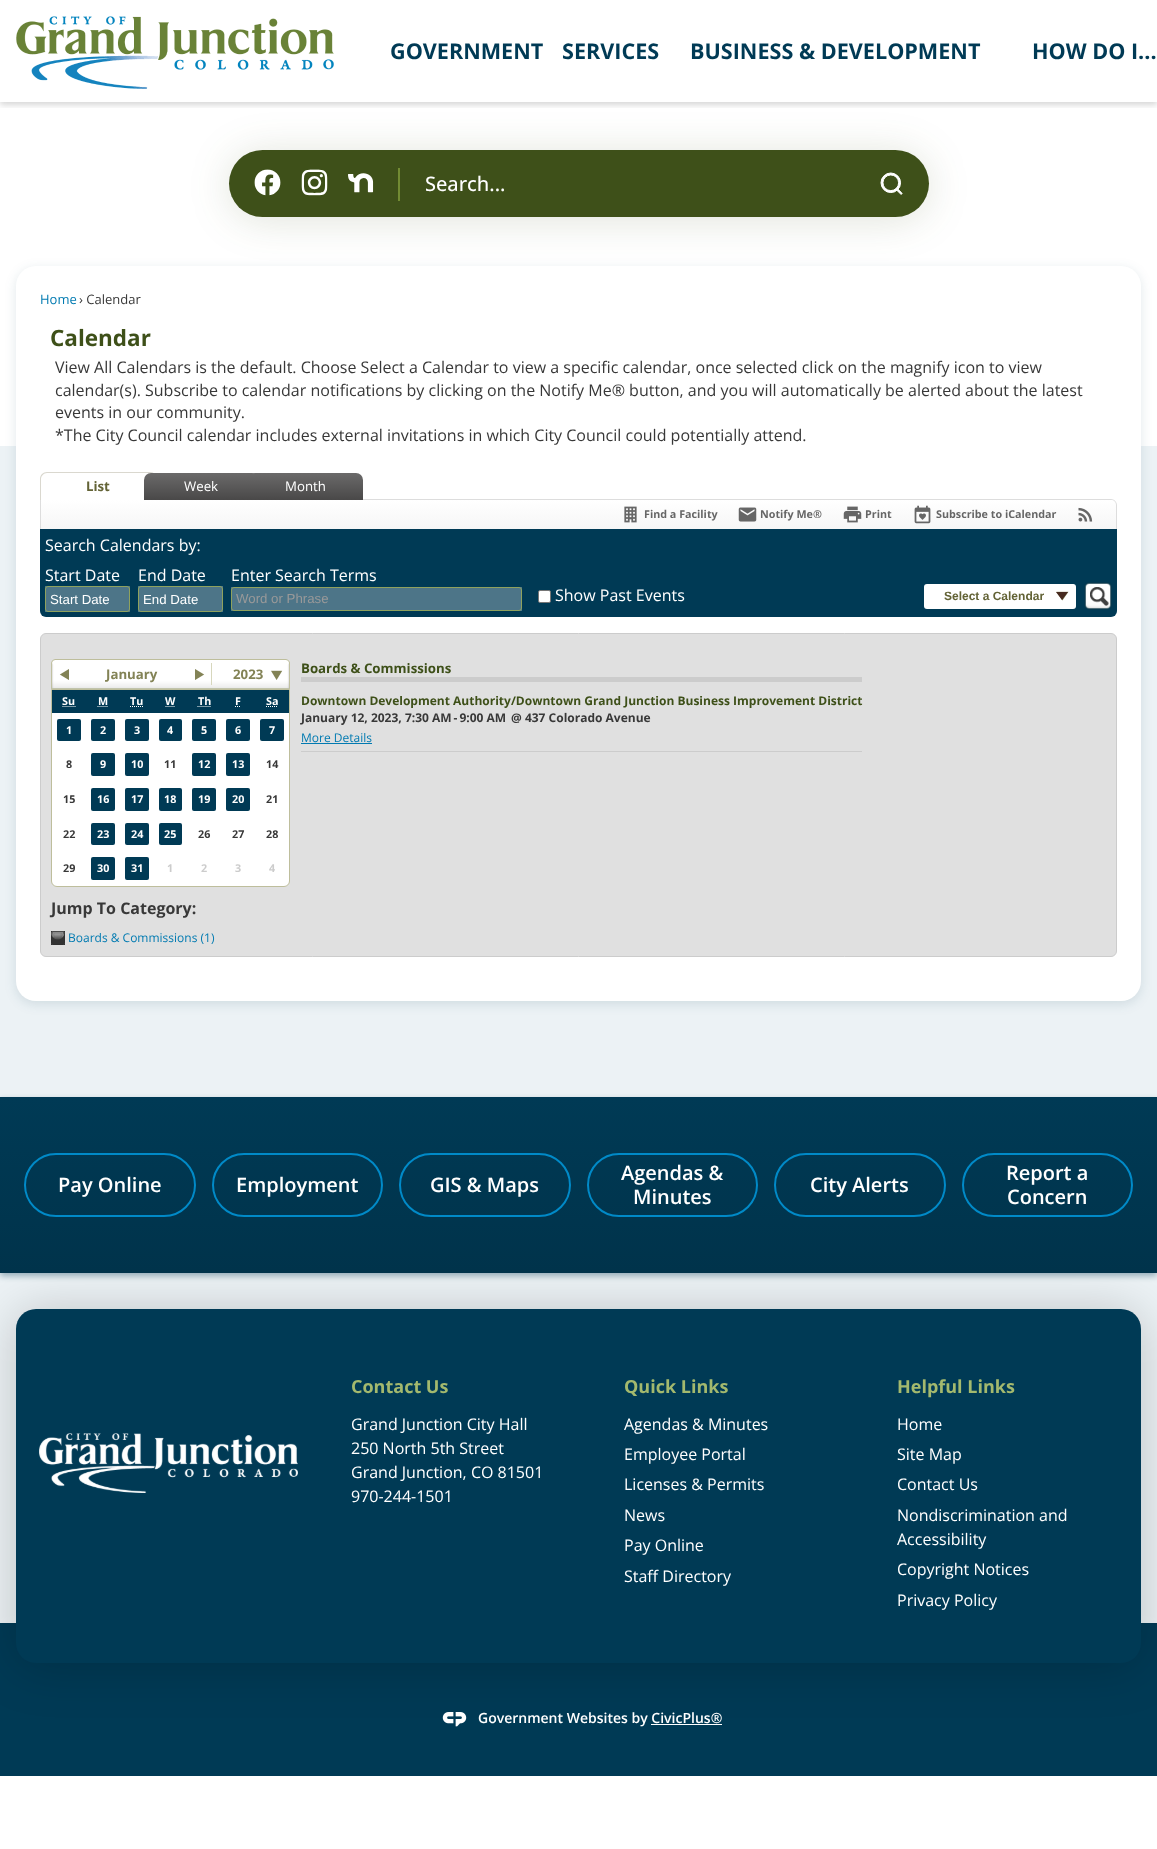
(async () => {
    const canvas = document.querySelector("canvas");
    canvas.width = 1157;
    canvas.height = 1849;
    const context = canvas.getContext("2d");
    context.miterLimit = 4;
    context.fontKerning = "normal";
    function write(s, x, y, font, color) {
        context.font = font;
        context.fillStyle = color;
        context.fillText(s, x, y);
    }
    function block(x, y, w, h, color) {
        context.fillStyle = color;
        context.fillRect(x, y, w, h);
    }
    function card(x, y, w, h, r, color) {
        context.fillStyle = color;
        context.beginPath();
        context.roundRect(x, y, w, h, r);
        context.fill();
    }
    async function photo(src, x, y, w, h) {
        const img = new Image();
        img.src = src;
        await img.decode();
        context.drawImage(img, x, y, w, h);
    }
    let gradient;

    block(0, 0, 1157, 1849, "rgb(255, 255, 255)");
    context.save();
    context.beginPath();
    context.rect(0, 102, 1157, 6);
    context.clip();
    context.fillStyle = "rgba(0, 0, 0, 0.16)";
    context.filter = "blur(3px)";
    context.beginPath();
    context.rect(0, 2, 1157, 103);
    context.fill();
    context.filter = "none";
    context.restore();
    await photo("media/1.png", 16, 16, 318, 73);
    write("GOVERNMENT", 390, 59, "bold 21.6px Open Sans", "rgb(0, 58, 85)");
    write("SERVICES", 562, 59, "bold 21.6px Open Sans", "rgb(0, 58, 85)");
    write("BUSINESS & DEVELOPMENT", 690, 59, "bold 21.6px Open Sans", "rgb(0, 58, 85)");
    write("HOW DO I...", 1032, 59, "bold 21.6px Open Sans", "rgb(0, 58, 85)");
    context.fillStyle = "rgba(62, 80, 25, 0.16)";
    context.filter = "blur(20px)";
    context.beginPath();
    context.roundRect(229, 153, 700, 67, 33.5);
    context.fill();
    context.filter = "none";
    card(229, 150, 700, 67, 33.5, "rgb(62, 80, 25)");
    await photo("media/2.png", 254, 169, 27, 27);
    await photo("media/3.png", 301, 169, 27, 27);
    await photo("media/4.png", 348, 173, 26, 20);
    block(398, 168, 2, 33, "rgb(114, 139, 51)");
    write("Search...", 425, 191, "500 20px Open Sans", "rgb(255, 255, 255)");
    await photo("media/5.png", 880, 172, 23, 23);
    block(0, 446, 1157, 651, "rgb(236, 242, 245)");
    context.fillStyle = "rgba(0, 58, 85, 0.12)";
    context.filter = "blur(6px)";
    context.beginPath();
    context.roundRect(16, 269, 1125, 735, 20);
    context.fill();
    context.filter = "none";
    card(16, 266, 1125, 735, 20, "rgb(255, 255, 255)");
    write("Home", 40, 304, "13px Open Sans", "rgb(1, 122, 177)");
    write("› Calendar", 79, 304, "13px Open Sans", "rgb(56, 56, 56)");
    write("Calendar", 50, 346, "bold 22.5px Open Sans", "rgb(62, 80, 25)");
    write("View All Calendars is the default. Choose Select a Calendar to view a specific calendar, once selected click on the magnify icon to view", 55, 373, "16px Open Sans", "rgb(56, 56, 56)");
    write("calendar(s). Subscribe to calendar notifications by clicking on the Notify Me® button, and you will automatically be alerted about the latest", 55, 396, "16px Open Sans", "rgb(56, 56, 56)");
    write("events in our community.", 55, 418, "16px Open Sans", "rgb(56, 56, 56)");
    write("*The City Council calendar includes external invitations in which City Council could potentially attend.", 55, 441, "16px Open Sans", "rgb(56, 56, 56)");
    context.save();
    context.beginPath();
    context.roundRect(40, 499, 1077, 30, [0, 6, 0, 0]);
    context.clip();
    gradient = context.createLinearGradient(579, 500, 579, 529);
    gradient.addColorStop(0, "rgb(255, 255, 255)");
    gradient.addColorStop(1, "rgb(246, 246, 246)");
    context.fillStyle = gradient;
    context.fillRect(41, 500, 1076, 29);
    context.restore();
    context.fillStyle = "rgb(221, 221, 221)";
    context.beginPath();
    context.moveTo(40, 499);
    context.lineTo(1111, 499);
    context.bezierCurveTo(1114, 499, 1117, 502, 1117, 505);
    context.lineTo(1117, 529);
    context.lineTo(40, 529);
    context.closePath();
    context.moveTo(41, 500);
    context.lineTo(1111, 500);
    context.bezierCurveTo(1114, 500, 1116, 502, 1116, 505);
    context.lineTo(1116, 529);
    context.lineTo(41, 529);
    context.closePath();
    context.fill("evenodd");
    context.fillStyle = "rgb(255, 255, 255)";
    context.beginPath();
    context.roundRect(40, 472, 117, 28, [7, 7, 0, 0]);
    context.fill();
    context.fillStyle = "rgb(218, 216, 207)";
    context.beginPath();
    context.moveTo(47, 472);
    context.lineTo(150, 472);
    context.bezierCurveTo(154, 472, 157, 475, 157, 479);
    context.lineTo(157, 500);
    context.lineTo(40, 500);
    context.lineTo(40, 479);
    context.bezierCurveTo(40, 475, 43, 472, 47, 472);
    context.closePath();
    context.moveTo(47, 473);
    context.lineTo(150, 473);
    context.bezierCurveTo(153, 473, 156, 476, 156, 479);
    context.lineTo(156, 500);
    context.lineTo(41, 500);
    context.lineTo(41, 479);
    context.bezierCurveTo(41, 476, 44, 473, 47, 473);
    context.closePath();
    context.fill("evenodd");
    write("List", 86, 491, "bold 13.25px Open Sans", "rgb(99, 99, 54)");
    gradient = context.createLinearGradient(202, 473, 202, 500);
    gradient.addColorStop(0, "rgb(107, 106, 106)");
    gradient.addColorStop(1, "rgb(73, 72, 72)");
    context.fillStyle = gradient;
    context.beginPath();
    context.roundRect(144, 473, 115, 27, [7, 7, 0, 0]);
    context.fill();
    write("Week", 184, 491, "13.25px Open Sans", "rgb(255, 255, 255)");
    gradient = context.createLinearGradient(306, 473, 306, 500);
    gradient.addColorStop(0, "rgb(107, 106, 106)");
    gradient.addColorStop(1, "rgb(73, 72, 72)");
    context.fillStyle = gradient;
    context.beginPath();
    context.roundRect(248, 473, 115, 27, [7, 7, 0, 0]);
    context.fill();
    write("Month", 285, 491, "13.25px Open Sans", "rgb(255, 255, 255)");
    await photo("media/6.png", 624, 506, 13, 17);
    write("Find a Facility", 644, 518, "bold 10.75px Open Sans", "rgb(102, 102, 102)");
    await photo("media/7.png", 738, 507, 19, 15);
    write("Notify Me®", 760, 518, "bold 10.75px Open Sans", "rgb(102, 102, 102)");
    await photo("media/8.png", 843, 506, 19, 17);
    write("Print", 865, 518, "bold 10.75px Open Sans", "rgb(102, 102, 102)");
    await photo("media/9.png", 914, 505, 17, 19);
    write("Subscribe to iCalendar", 936, 518, "bold 10.75px Open Sans", "rgb(102, 102, 102)");
    await photo("media/10.png", 1078, 507, 15, 15);
    context.fillStyle = "rgb(0, 58, 85)";
    context.beginPath();
    context.roundRect(40, 529, 1077, 88, [0, 0, 6, 6]);
    context.fill();
    write("Search Calendars by:", 45, 551, "16px Open Sans", "rgb(255, 255, 255)");
    write("Start Date", 45, 581, "16px Open Sans", "rgb(255, 255, 255)");
    block(45, 586, 85, 26, "rgb(77, 117, 136)");
    context.beginPath();
    context.roundRect(45.5, 586.5, 84, 25, 2.5);
    context.strokeStyle = "rgb(143, 162, 94)";
    context.stroke();
    write("Start Date", 50, 604, "13.25px Liberation Sans", "rgb(255, 255, 255)");
    write("End Date", 138, 581, "16px Open Sans", "rgb(255, 255, 255)");
    block(138, 586, 85, 26, "rgb(77, 117, 136)");
    context.beginPath();
    context.roundRect(138.5, 586.5, 84, 25, 2.5);
    context.stroke();
    write("End Date", 143, 604, "13.25px Liberation Sans", "rgb(255, 255, 255)");
    write("Enter Search Terms", 231, 581, "16px Open Sans", "rgb(255, 255, 255)");
    block(231, 587, 291, 24, "rgb(77, 117, 136)");
    context.beginPath();
    context.roundRect(231.5, 587.5, 290, 23, 2.5);
    context.stroke();
    write("Word or Phrase", 236, 603, "13.25px Liberation Sans", "rgb(153, 153, 153)");
    context.fillStyle = "rgb(255, 255, 255)";
    context.beginPath();
    context.roundRect(538.5, 590.5, 12, 12, 1.5);
    context.fill();
    context.strokeStyle = "rgb(118, 118, 118)";
    context.stroke();
    write("Show Past Events", 555, 601, "16px Open Sans", "rgb(255, 255, 255)");
    card(924, 584, 152, 25, 3, "rgb(255, 255, 255)");
    await photo("media/11.png", 1056, 584, 18, 17);
    write("Select a Calendar", 944, 600, "bold 12px Liberation Sans", "rgb(99, 99, 54)");
    context.fillStyle = "rgb(71, 42, 31)";
    context.beginPath();
    context.moveTo(1056, 592);
    context.lineTo(1068, 592);
    context.lineTo(1062, 600);
    context.closePath();
    context.fill();
    await photo("media/12.png", 1084, 582, 28, 28);
    context.fillStyle = "rgb(224, 224, 224)";
    context.beginPath();
    context.roundRect(40.5, 633.5, 1076, 323, 5.5);
    context.fill();
    context.strokeStyle = "rgb(204, 204, 204)";
    context.stroke();
    await photo("media/13.png", 51, 659, 25, 30);
    await photo("media/14.png", 76, 659, 111, 30);
    write("January", 106, 679, "bold 13.25px Open Sans", "rgb(131, 131, 86)");
    await photo("media/15.png", 187, 659, 25, 30);
    await photo("media/16.png", 212, 659, 53, 30);
    write("2023", 233, 679, "bold 13.25px Open Sans", "rgb(131, 131, 86)");
    await photo("media/17.png", 265, 659, 25, 30);
    context.fillStyle = "rgb(255, 255, 255)";
    context.beginPath();
    context.roundRect(51.5, 689.5, 238, 197, [0, 0, 5.5, 5.5]);
    context.fill();
    context.strokeStyle = "rgb(190, 190, 156)";
    context.stroke();
    block(52, 690, 237, 23, "rgb(0, 58, 85)");
    write("Su", 62, 705, "bold 10.75px Open Sans", "rgb(255, 255, 255)");
    context.beginPath();
    context.moveTo(62.5, 706.5);
    context.lineTo(75.5, 706.5);
    context.strokeStyle = "rgb(255, 255, 255)";
    context.setLineDash([1, 1]);
    context.stroke();
    write("M", 98, 705, "bold 10.75px Open Sans", "rgb(255, 255, 255)");
    context.beginPath();
    context.moveTo(97.5, 706.5);
    context.lineTo(108, 706.5);
    context.stroke();
    write("Tu", 130, 705, "bold 10.75px Open Sans", "rgb(255, 255, 255)");
    context.beginPath();
    context.moveTo(130, 706.5);
    context.lineTo(143, 706.5);
    context.stroke();
    write("W", 165, 705, "bold 10.75px Open Sans", "rgb(255, 255, 255)");
    context.beginPath();
    context.moveTo(165.5, 706.5);
    context.lineTo(175.5, 706.5);
    context.stroke();
    write("Th", 198, 705, "bold 10.75px Open Sans", "rgb(255, 255, 255)");
    context.beginPath();
    context.moveTo(197.5, 706.5);
    context.lineTo(211, 706.5);
    context.stroke();
    write("F", 235, 705, "bold 10.75px Open Sans", "rgb(255, 255, 255)");
    context.beginPath();
    context.moveTo(235, 706.5);
    context.lineTo(236, 706.5);
    context.moveTo(237, 706.5);
    context.lineTo(238, 706.5);
    context.moveTo(239, 706.5);
    context.lineTo(240, 706.5);
    context.setLineDash([]);
    context.stroke();
    write("Sa", 266, 705, "bold 10.75px Open Sans", "rgb(255, 255, 255)");
    context.beginPath();
    context.moveTo(266, 706.5);
    context.lineTo(278, 706.5);
    context.setLineDash([1, 1]);
    context.stroke();
    card(57, 719, 24, 22, 2, "rgb(0, 58, 85)");
    write("1", 66, 734, "bold 10.75px Open Sans", "rgb(255, 255, 255)");
    card(91, 719, 24, 22, 2, "rgb(0, 58, 85)");
    write("2", 100, 734, "bold 10.75px Open Sans", "rgb(255, 255, 255)");
    card(125, 719, 24, 22, 2, "rgb(0, 58, 85)");
    write("3", 134, 734, "bold 10.75px Open Sans", "rgb(255, 255, 255)");
    card(159, 719, 23, 22, 2, "rgb(0, 58, 85)");
    write("4", 167, 734, "bold 10.75px Open Sans", "rgb(255, 255, 255)");
    card(192, 719, 24, 22, 2, "rgb(0, 58, 85)");
    write("5", 201, 734, "bold 10.75px Open Sans", "rgb(255, 255, 255)");
    card(226, 719, 24, 22, 2, "rgb(0, 58, 85)");
    write("6", 235, 734, "bold 10.75px Open Sans", "rgb(255, 255, 255)");
    card(260, 719, 24, 22, 2, "rgb(0, 58, 85)");
    write("7", 269, 734, "bold 10.75px Open Sans", "rgb(255, 255, 255)");
    write("8", 66, 768, "bold 10.75px Open Sans", "rgb(56, 56, 56)");
    card(91, 753, 24, 23, 2, "rgb(0, 58, 85)");
    write("9", 100, 768, "bold 10.75px Open Sans", "rgb(255, 255, 255)");
    card(125, 753, 24, 23, 2, "rgb(0, 58, 85)");
    write("10", 131, 768, "bold 10.75px Open Sans", "rgb(255, 255, 255)");
    write("11", 164, 768, "bold 10.75px Open Sans", "rgb(56, 56, 56)");
    card(192, 753, 24, 23, 2, "rgb(0, 58, 85)");
    write("12", 198, 768, "bold 10.75px Open Sans", "rgb(255, 255, 255)");
    card(226, 753, 24, 23, 2, "rgb(0, 58, 85)");
    write("13", 232, 768, "bold 10.75px Open Sans", "rgb(255, 255, 255)");
    write("14", 266, 768, "bold 10.75px Open Sans", "rgb(56, 56, 56)");
    write("15", 63, 803, "bold 10.75px Open Sans", "rgb(56, 56, 56)");
    card(91, 788, 24, 23, 2, "rgb(0, 58, 85)");
    write("16", 97, 803, "bold 10.75px Open Sans", "rgb(255, 255, 255)");
    card(125, 788, 24, 23, 2, "rgb(0, 58, 85)");
    write("17", 131, 803, "bold 10.75px Open Sans", "rgb(255, 255, 255)");
    card(159, 788, 23, 23, 2, "rgb(0, 58, 85)");
    write("18", 164, 803, "bold 10.75px Open Sans", "rgb(255, 255, 255)");
    card(192, 788, 24, 23, 2, "rgb(0, 58, 85)");
    write("19", 198, 803, "bold 10.75px Open Sans", "rgb(255, 255, 255)");
    card(226, 788, 24, 23, 2, "rgb(0, 58, 85)");
    write("20", 232, 803, "bold 10.75px Open Sans", "rgb(255, 255, 255)");
    write("21", 266, 803, "bold 10.75px Open Sans", "rgb(56, 56, 56)");
    write("22", 63, 838, "bold 10.75px Open Sans", "rgb(56, 56, 56)");
    card(91, 823, 24, 22, 2, "rgb(0, 58, 85)");
    write("23", 97, 838, "bold 10.75px Open Sans", "rgb(255, 255, 255)");
    card(125, 823, 24, 22, 2, "rgb(0, 58, 85)");
    write("24", 131, 838, "bold 10.75px Open Sans", "rgb(255, 255, 255)");
    card(159, 823, 23, 22, 2, "rgb(0, 58, 85)");
    write("25", 164, 838, "bold 10.75px Open Sans", "rgb(255, 255, 255)");
    write("26", 198, 838, "bold 10.75px Open Sans", "rgb(56, 56, 56)");
    write("27", 232, 838, "bold 10.75px Open Sans", "rgb(56, 56, 56)");
    write("28", 266, 838, "bold 10.75px Open Sans", "rgb(56, 56, 56)");
    write("29", 63, 872, "bold 10.75px Open Sans", "rgb(56, 56, 56)");
    card(91, 857, 24, 23, 2, "rgb(0, 58, 85)");
    write("30", 97, 872, "bold 10.75px Open Sans", "rgb(255, 255, 255)");
    card(125, 857, 24, 23, 2, "rgb(0, 58, 85)");
    write("31", 131, 872, "bold 10.75px Open Sans", "rgb(255, 255, 255)");
    write("1", 167, 872, "bold 10.75px Open Sans", "rgb(204, 204, 204)");
    write("2", 201, 872, "bold 10.75px Open Sans", "rgb(204, 204, 204)");
    write("3", 235, 872, "bold 10.75px Open Sans", "rgb(204, 204, 204)");
    write("4", 269, 872, "bold 10.75px Open Sans", "rgb(204, 204, 204)");
    write("Jump To Category:", 51, 914, "bold 16px Open Sans", "rgb(56, 56, 56)");
    block(51, 931, 14, 14, "rgb(51, 51, 51)");
    await photo("media/18.png", 51, 931, 14, 14);
    write("Boards & Commissions (1)", 68, 942, "12px Open Sans", "rgb(1, 122, 177)");
    block(301, 677, 561, 5, "rgb(204, 204, 204)");
    write("Boards & Commissions", 301, 673, "bold 13.25px Open Sans", "rgb(62, 80, 25)");
    block(301, 751, 561, 1, "rgb(204, 204, 204)");
    write("Downtown Development Authority/Downtown Grand Junction Business Improvement District", 301, 705, "bold 12px Open Sans", "rgb(62, 80, 25)");
    write("January 12, 2023, 7:30 AM - 9:00 AM", 301, 722, "bold 12px Open Sans", "rgb(56, 56, 56)");
    write("@ 437 Colorado Avenue", 511, 722, "bold 12px Open Sans", "rgb(56, 56, 56)");
    write("More Details", 301, 742, "12px Open Sans", "rgb(1, 122, 177)");
    block(301, 743, 71, 1, "rgb(1, 122, 177)");
    block(0, 1273, 1157, 350, "rgb(236, 242, 245)");
    context.fillStyle = "rgba(0, 58, 85, 0.37)";
    context.filter = "blur(3px)";
    context.beginPath();
    context.rect(0, 1100, 1157, 176);
    context.fill();
    context.filter = "none";
    block(0, 1623, 1157, 153, "rgb(0, 58, 85)");
    await photo("media/20.png", 442, 1712, 25, 15);
    block(651, 1724, 71, 1, "rgb(255, 255, 255)");
    context.fillStyle = "rgba(0, 0, 0, 0.2)";
    context.filter = "blur(25px)";
    context.beginPath();
    context.roundRect(16, 1312, 1125, 354, 20);
    context.fill();
    context.filter = "none";
    gradient = context.createLinearGradient(579, 1097, 579, 1273);
    gradient.addColorStop(0, "rgb(0, 58, 85)");
    gradient.addColorStop(1, "rgb(0, 51, 75)");
    context.fillStyle = gradient;
    context.fillRect(0, 1097, 1157, 176);
    context.beginPath();
    context.roundRect(25, 1154, 170, 62, 31);
    context.strokeStyle = "rgb(0, 138, 200)";
    context.lineWidth = 2;
    context.setLineDash([]);
    context.stroke();
    write("Pay Online", 58, 1192, "600 20px Open Sans", "rgb(255, 255, 255)");
    context.beginPath();
    context.roundRect(213, 1154, 169, 62, 31);
    context.stroke();
    write("Employment", 236, 1192, "600 20px Open Sans", "rgb(255, 255, 255)");
    context.beginPath();
    context.roundRect(400, 1154, 170, 62, 31);
    context.stroke();
    write("GIS & Maps", 430, 1192, "600 20px Open Sans", "rgb(255, 255, 255)");
    context.beginPath();
    context.roundRect(588, 1154, 169, 62, 31);
    context.stroke();
    write("Agendas &", 621, 1180, "600 20px Open Sans", "rgb(255, 255, 255)");
    write("Minutes", 633, 1204, "600 20px Open Sans", "rgb(255, 255, 255)");
    context.beginPath();
    context.roundRect(775, 1154, 170, 62, 31);
    context.stroke();
    write("City Alerts", 810, 1192, "600 20px Open Sans", "rgb(255, 255, 255)");
    context.beginPath();
    context.roundRect(963, 1154, 169, 62, 31);
    context.stroke();
    write("Report a", 1006, 1180, "600 20px Open Sans", "rgb(255, 255, 255)");
    write("Concern", 1007, 1204, "600 20px Open Sans", "rgb(255, 255, 255)");
    card(16, 1309, 1125, 354, 20, "rgb(0, 58, 85)");
    await photo("media/19.png", 39, 1433, 259, 60);
    write("Contact Us", 351, 1393, "bold 18px Open Sans", "rgb(163, 185, 110)");
    write("Grand Junction City Hall", 351, 1430, "16px Open Sans", "rgb(255, 255, 255)");
    write("250 North 5th Street", 351, 1454, "16px Open Sans", "rgb(255, 255, 255)");
    write("Grand Junction, CO 81501", 351, 1478, "16px Open Sans", "rgb(255, 255, 255)");
    write("970-244-1501", 351, 1502, "16px Open Sans", "rgb(255, 255, 255)");
    write("Quick Links", 624, 1393, "bold 18px Open Sans", "rgb(163, 185, 110)");
    write("Agendas & Minutes", 624, 1430, "16px Open Sans", "rgb(255, 255, 255)");
    write("Employee Portal", 624, 1460, "16px Open Sans", "rgb(255, 255, 255)");
    write("Licenses & Permits", 624, 1490, "16px Open Sans", "rgb(255, 255, 255)");
    write("News", 624, 1521, "16px Open Sans", "rgb(255, 255, 255)");
    write("Pay Online", 624, 1551, "16px Open Sans", "rgb(255, 255, 255)");
    write("Staff Directory", 624, 1582, "16px Open Sans", "rgb(255, 255, 255)");
    write("Helpful Links", 897, 1393, "bold 18px Open Sans", "rgb(163, 185, 110)");
    write("Home", 897, 1430, "16px Open Sans", "rgb(255, 255, 255)");
    write("Site Map", 897, 1460, "16px Open Sans", "rgb(255, 255, 255)");
    write("Contact Us", 897, 1490, "16px Open Sans", "rgb(255, 255, 255)");
    write("Nondiscrimination and", 897, 1521, "16px Open Sans", "rgb(255, 255, 255)");
    write("Accessibility", 897, 1545, "16px Open Sans", "rgb(255, 255, 255)");
    write("Copyright Notices", 897, 1575, "16px Open Sans", "rgb(255, 255, 255)");
    write("Privacy Policy", 897, 1606, "16px Open Sans", "rgb(255, 255, 255)");
    write("Government Websites by CivicPlus®", 478, 1723, "600 14px Open Sans", "rgb(255, 255, 255)");
})();
